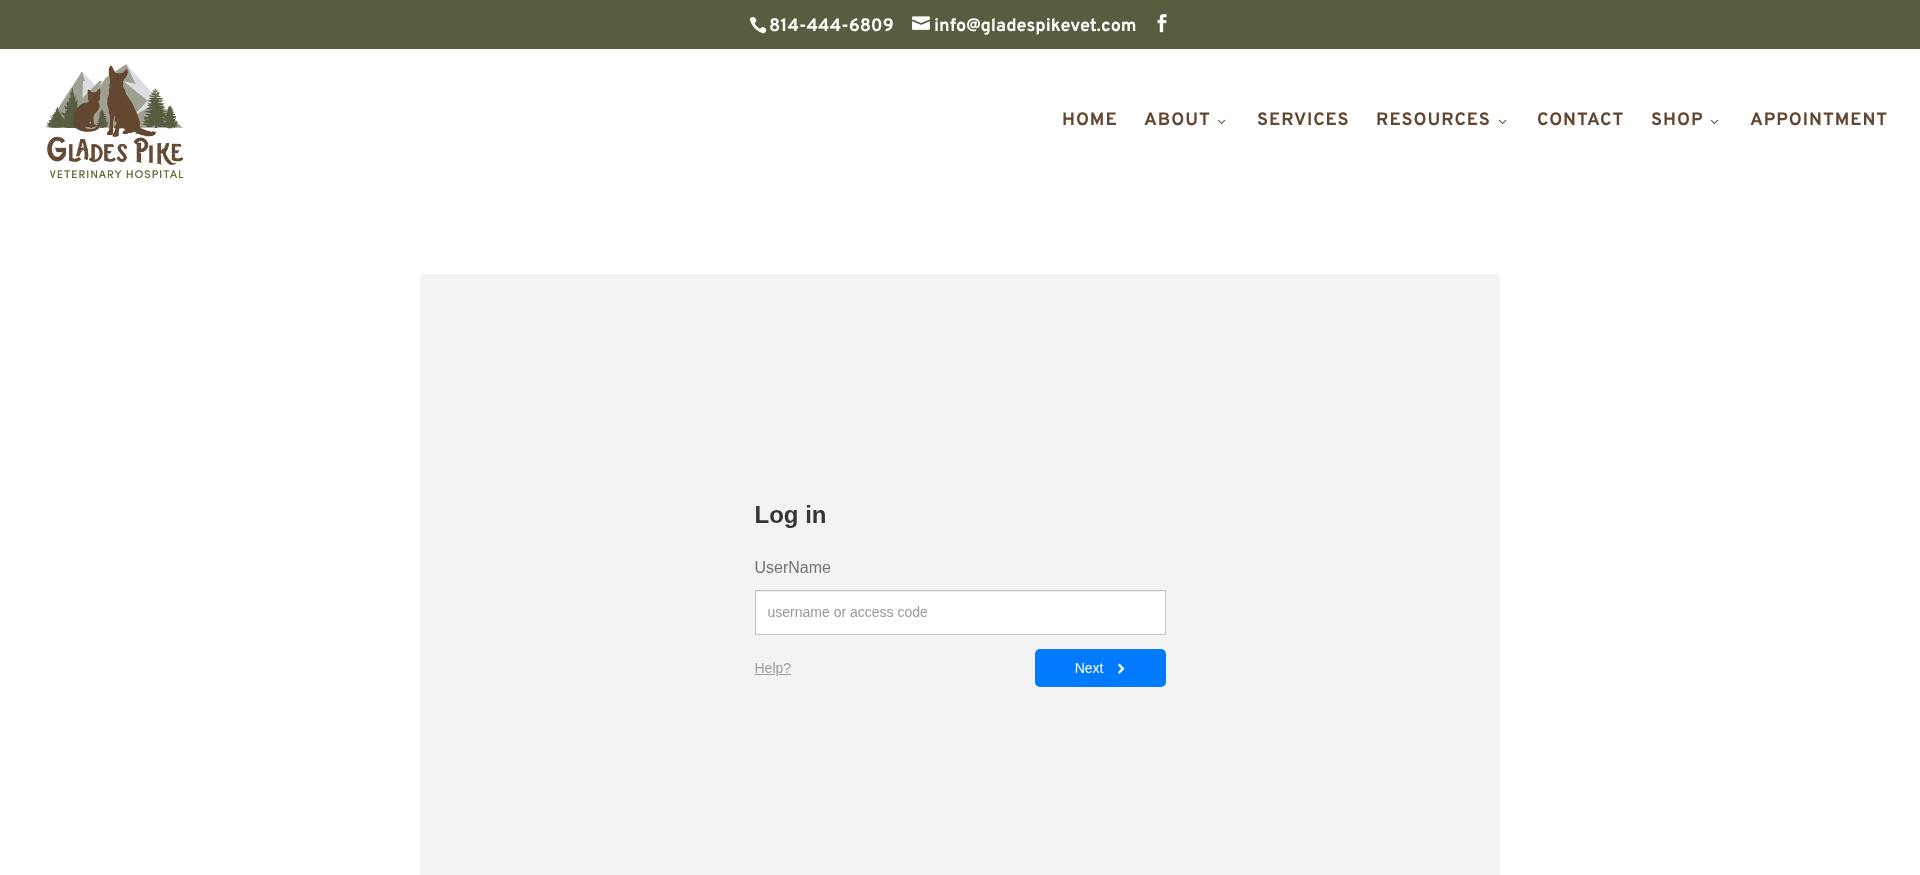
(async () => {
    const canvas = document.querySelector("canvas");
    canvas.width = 1920;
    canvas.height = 875;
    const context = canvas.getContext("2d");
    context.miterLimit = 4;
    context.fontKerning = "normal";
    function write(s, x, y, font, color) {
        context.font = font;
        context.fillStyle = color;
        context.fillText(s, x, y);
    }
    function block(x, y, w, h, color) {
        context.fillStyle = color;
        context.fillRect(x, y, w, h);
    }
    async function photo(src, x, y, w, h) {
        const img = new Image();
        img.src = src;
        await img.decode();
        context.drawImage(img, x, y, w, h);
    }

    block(0, 0, 1920, 875, "rgb(255, 255, 255)");
    block(0, 0, 1920, 49, "rgb(89, 93, 63)");
    await photo("media/1.png", 749, 16, 18, 18);
    write("814-444-6809", 769, 31, "bold 18px Overpass", "rgb(255, 255, 255)");
    await photo("media/2.png", 912, 16, 18, 14);
    write("info@gladespikevet.com", 934, 31, "bold 18px Overpass", "rgb(255, 255, 255)");
    await photo("media/3.png", 1157, 14, 10, 19);
    await photo("media/4.png", 46, 64, 138, 115);
    context.letterSpacing = "1px";
    write("HOME", 1062, 125, "bold 18px Overpass", "rgb(99, 71, 49)");
    write("ABOUT", 1144, 125, "bold 18px Overpass", "rgb(99, 71, 49)");
    await photo("media/5.png", 1217, 119, 9, 5);
    write("SERVICES", 1257, 125, "bold 18px Overpass", "rgb(99, 71, 49)");
    write("RESOURCES", 1376, 125, "bold 18px Overpass", "rgb(99, 71, 49)");
    await photo("media/5.png", 1498, 119, 9, 5);
    write("CONTACT", 1537, 125, "bold 18px Overpass", "rgb(99, 71, 49)");
    write("SHOP", 1651, 125, "bold 18px Overpass", "rgb(99, 71, 49)");
    await photo("media/5.png", 1710, 119, 9, 5);
    write("APPOINTMENT", 1750, 125, "bold 18px Overpass", "rgb(99, 71, 49)");
    await photo("media/6.png", 420, 274, 1080, 601);
})();
